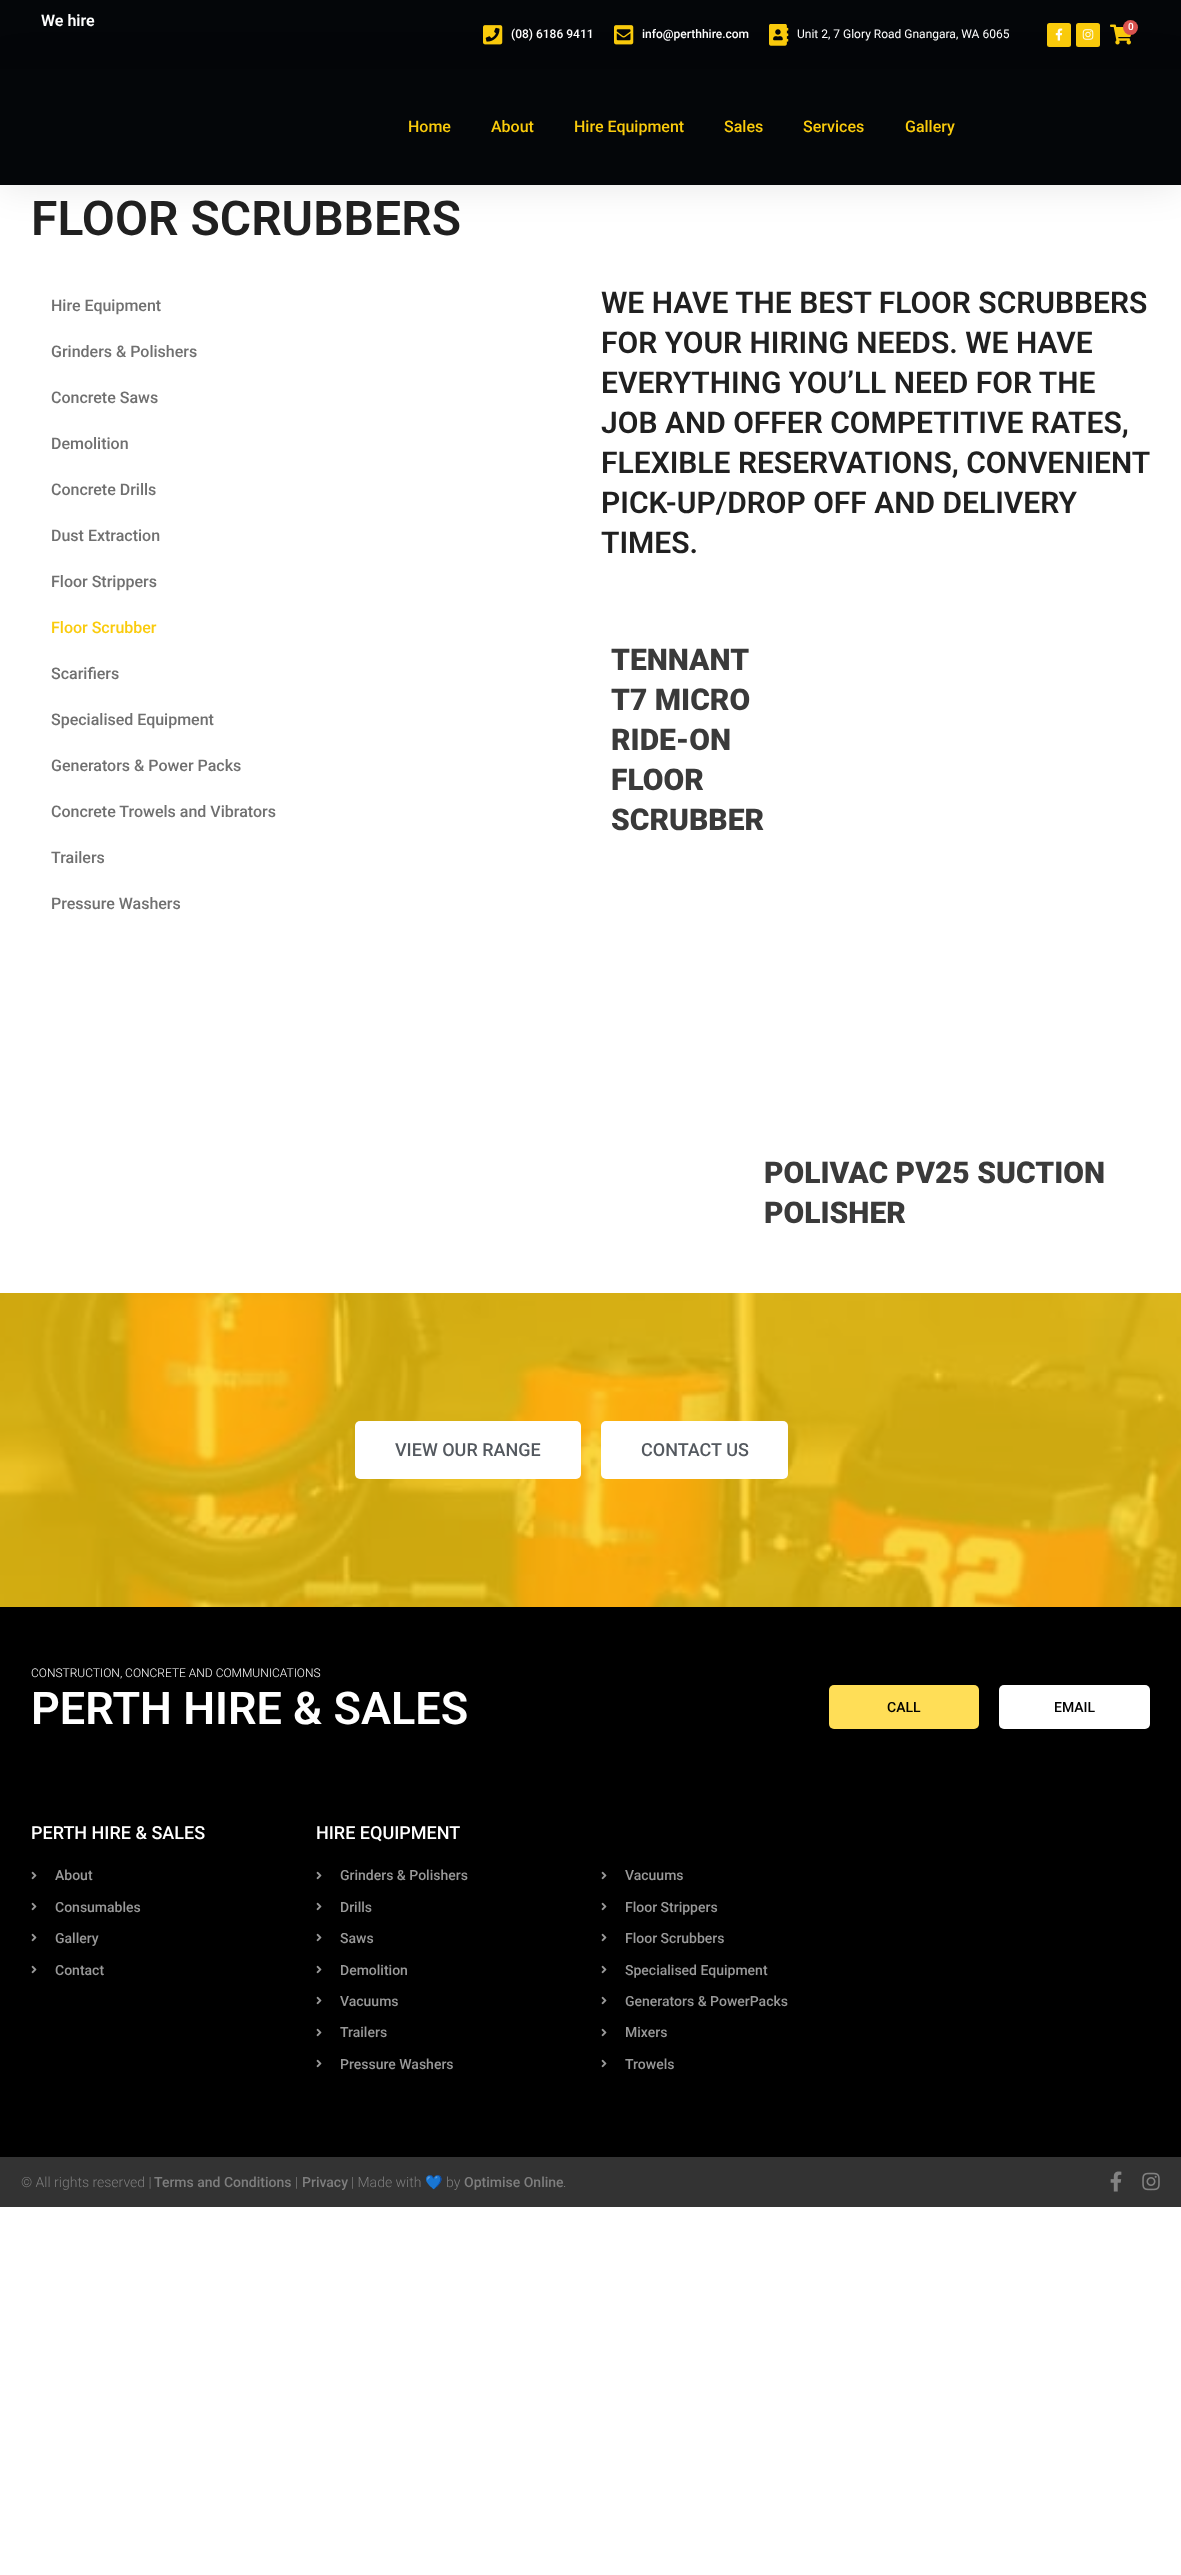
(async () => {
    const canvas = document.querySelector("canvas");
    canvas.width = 1181;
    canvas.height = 2575;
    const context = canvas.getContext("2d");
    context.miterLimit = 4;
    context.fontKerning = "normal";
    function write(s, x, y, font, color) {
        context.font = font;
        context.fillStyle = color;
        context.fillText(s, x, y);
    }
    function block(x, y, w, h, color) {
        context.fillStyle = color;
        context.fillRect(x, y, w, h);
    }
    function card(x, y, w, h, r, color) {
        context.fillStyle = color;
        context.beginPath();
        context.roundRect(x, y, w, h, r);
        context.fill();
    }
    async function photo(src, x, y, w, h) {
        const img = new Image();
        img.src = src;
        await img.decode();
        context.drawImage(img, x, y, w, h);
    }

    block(0, 0, 1181, 2575, "rgb(255, 255, 255)");
    block(0, 0, 1181, 69, "rgb(4, 6, 9)");
    write("We hire", 41, 26, "600 16px Roboto", "rgb(255, 255, 255)");
    card(1047, 23, 24, 24, 2.5, "rgb(250, 203, 12)");
    await photo("media/1.png", 1055, 28, 8, 13);
    card(1076, 23, 24, 24, 2.5, "rgb(250, 203, 12)");
    await photo("media/2.png", 1082, 29, 12, 11);
    await photo("media/3.png", 1110, 24, 22, 21);
    context.fillStyle = "rgb(217, 83, 79)";
    context.beginPath();
    context.arc(1130.5, 27.5, 7.5, 0, Math.PI * 2);
    context.fill();
    write("0", 1128, 30, "500 10px Roboto", "rgb(255, 255, 255)");
    await photo("media/4.png", 483, 25, 20, 20);
    write("(08) 6186 9411", 511, 38, "500 12px Roboto", "rgb(255, 255, 255)");
    await photo("media/5.png", 614, 25, 20, 20);
    write("info@perthhire.com", 642, 38, "500 12px Roboto", "rgb(255, 255, 255)");
    await photo("media/6.png", 769, 24, 20, 22);
    write("Unit 2, 7 Glory Road Gnangara, WA 6065", 797, 38, "12px Roboto", "rgb(255, 255, 255)");
    context.fillStyle = "rgba(0, 0, 0, 0.1)";
    context.filter = "blur(19px)";
    context.beginPath();
    context.rect(0, 69, 1181, 116);
    context.fill();
    context.filter = "none";
    block(0, 69, 1181, 116, "rgb(4, 6, 9)");
    write("Home", 408, 132, "500 16px Roboto", "rgb(250, 203, 12)");
    write("About", 491, 132, "500 16px Roboto", "rgb(250, 203, 12)");
    write("Hire Equipment", 574, 132, "500 16px Roboto", "rgb(250, 203, 12)");
    write("Sales", 724, 132, "500 16px Roboto", "rgb(250, 203, 12)");
    write("Services", 803, 132, "500 16px Roboto", "rgb(250, 203, 12)");
    write("Gallery", 905, 132, "500 16px Roboto", "rgb(250, 203, 12)");
    write("FLOOR SCRUBBERS", 31, 235, "600 48px Roboto", "rgb(32, 32, 32)");
    write("Hire Equipment", 51, 311, "500 16px Roboto", "rgb(112, 112, 112)");
    write("Grinders & Polishers", 51, 357, "500 16px Roboto", "rgb(112, 112, 112)");
    write("Concrete Saws", 51, 403, "500 16px Roboto", "rgb(112, 112, 112)");
    write("Demolition", 51, 449, "500 16px Roboto", "rgb(112, 112, 112)");
    write("Concrete Drills", 51, 495, "500 16px Roboto", "rgb(112, 112, 112)");
    write("Dust Extraction", 51, 541, "500 16px Roboto", "rgb(112, 112, 112)");
    write("Floor Strippers", 51, 587, "500 16px Roboto", "rgb(112, 112, 112)");
    write("Floor Scrubber", 51, 633, "500 16px Roboto", "rgb(250, 203, 12)");
    write("Scarifiers", 51, 679, "500 16px Roboto", "rgb(112, 112, 112)");
    write("Specialised Equipment", 51, 725, "500 16px Roboto", "rgb(112, 112, 112)");
    write("Generators & Power Packs", 51, 771, "500 16px Roboto", "rgb(112, 112, 112)");
    write("Concrete Trowels and Vibrators", 51, 817, "500 16px Roboto", "rgb(112, 112, 112)");
    write("Trailers", 51, 863, "500 16px Roboto", "rgb(112, 112, 112)");
    write("Pressure Washers", 51, 909, "500 16px Roboto", "rgb(112, 112, 112)");
    write("WE HAVE THE BEST FLOOR SCRUBBERS", 601, 313, "600 30px Roboto", "rgb(32, 32, 32)");
    write("FOR YOUR HIRING NEEDS. WE HAVE", 601, 353, "600 30px Roboto", "rgb(32, 32, 32)");
    write("EVERYTHING YOU’LL NEED FOR THE", 601, 393, "600 30px Roboto", "rgb(32, 32, 32)");
    write("JOB AND OFFER COMPETITIVE RATES,", 601, 433, "600 30px Roboto", "rgb(32, 32, 32)");
    write("FLEXIBLE RESERVATIONS, CONVENIENT", 601, 473, "600 30px Roboto", "rgb(32, 32, 32)");
    write("PICK-UP/DROP OFF AND DELIVERY", 601, 513, "600 30px Roboto", "rgb(32, 32, 32)");
    write("TIMES.", 601, 553, "600 30px Roboto", "rgb(32, 32, 32)");
    write("TENNANT", 611, 670, "900 30px Roboto", "rgb(58, 58, 58)");
    write("T7 MICRO", 611, 710, "900 30px Roboto", "rgb(58, 58, 58)");
    write("RIDE-ON", 611, 750, "900 30px Roboto", "rgb(58, 58, 58)");
    write("FLOOR", 611, 790, "900 30px Roboto", "rgb(58, 58, 58)");
    write("SCRUBBER", 611, 830, "900 30px Roboto", "rgb(58, 58, 58)");
    write("POLIVAC PV25 SUCTION", 764, 1183, "900 30px Roboto", "rgb(58, 58, 58)");
    write("POLISHER", 764, 1223, "900 30px Roboto", "rgb(58, 58, 58)");
    await photo("media/7.png", 0, 1293, 1181, 314);
    card(355, 1421, 226, 58, 5, "rgb(255, 255, 255)");
    write("VIEW OUR RANGE", 395, 1456, "500 18px Roboto", "rgb(84, 89, 95)");
    card(601, 1421, 187, 58, 5, "rgb(255, 255, 255)");
    write("CONTACT US", 641, 1456, "500 18px Roboto", "rgb(84, 89, 95)");
    block(0, 1607, 1181, 550, "rgb(0, 0, 0)");
    write("CONSTRUCTION, CONCRETE AND COMMUNICATIONS", 31, 1677, "300 12px Roboto", "rgb(255, 255, 255)");
    write("PERTH HIRE & SALES", 31, 1724, "600 45px Roboto", "rgb(255, 255, 255)");
    card(829, 1685, 150, 44, 5, "rgb(255, 222, 87)");
    write("CALL", 887, 1712, "500 14px Roboto", "rgb(0, 0, 0)");
    card(999, 1685, 151, 44, 5, "rgb(255, 255, 255)");
    write("EMAIL", 1054, 1712, "500 14px Roboto", "rgb(0, 0, 0)");
    write("PERTH HIRE & SALES", 31, 1839, "500 18px Roboto", "rgb(255, 255, 255)");
    await photo("media/8.png", 31, 1871, 6, 9);
    write("About", 55, 1880, "500 14px Roboto", "rgb(153, 153, 153)");
    await photo("media/8.png", 31, 1902, 6, 9);
    write("Consumables", 55, 1912, "500 14px Roboto", "rgb(153, 153, 153)");
    await photo("media/8.png", 31, 1933, 6, 9);
    write("Gallery", 55, 1943, "500 14px Roboto", "rgb(153, 153, 153)");
    await photo("media/8.png", 31, 1965, 6, 9);
    write("Contact", 55, 1975, "500 14px Roboto", "rgb(153, 153, 153)");
    write("HIRE EQUIPMENT", 316, 1839, "500 18px Roboto", "rgb(255, 255, 255)");
    await photo("media/8.png", 316, 1871, 6, 9);
    write("Grinders & Polishers", 340, 1880, "500 14px Roboto", "rgb(153, 153, 153)");
    await photo("media/8.png", 316, 1902, 6, 9);
    write("Drills", 340, 1912, "500 14px Roboto", "rgb(153, 153, 153)");
    await photo("media/8.png", 316, 1933, 6, 9);
    write("Saws", 340, 1943, "500 14px Roboto", "rgb(153, 153, 153)");
    await photo("media/8.png", 316, 1965, 6, 9);
    write("Demolition", 340, 1975, "500 14px Roboto", "rgb(153, 153, 153)");
    await photo("media/8.png", 316, 1996, 6, 9);
    write("Vacuums", 340, 2006, "500 14px Roboto", "rgb(153, 153, 153)");
    await photo("media/8.png", 316, 2028, 6, 9);
    write("Trailers", 340, 2037, "500 14px Roboto", "rgb(153, 153, 153)");
    await photo("media/8.png", 316, 2059, 6, 9);
    write("Pressure Washers", 340, 2069, "500 14px Roboto", "rgb(153, 153, 153)");
    await photo("media/8.png", 601, 1871, 6, 9);
    write("Vacuums", 625, 1880, "500 14px Roboto", "rgb(153, 153, 153)");
    await photo("media/8.png", 601, 1902, 6, 9);
    write("Floor Strippers", 625, 1912, "500 14px Roboto", "rgb(153, 153, 153)");
    await photo("media/8.png", 601, 1933, 6, 9);
    write("Floor Scrubbers", 625, 1943, "500 14px Roboto", "rgb(153, 153, 153)");
    await photo("media/8.png", 601, 1965, 6, 9);
    write("Specialised Equipment", 625, 1975, "500 14px Roboto", "rgb(153, 153, 153)");
    await photo("media/8.png", 601, 1996, 6, 9);
    write("Generators & PowerPacks", 625, 2006, "500 14px Roboto", "rgb(153, 153, 153)");
    await photo("media/8.png", 601, 2028, 6, 9);
    write("Mixers", 625, 2037, "500 14px Roboto", "rgb(153, 153, 153)");
    await photo("media/8.png", 601, 2059, 6, 9);
    write("Trowels", 625, 2069, "500 14px Roboto", "rgb(153, 153, 153)");
    block(0, 2157, 1181, 50, "rgb(51, 51, 51)");
    write("© All rights reserved |", 21, 2187, "300 14px Roboto", "rgb(126, 126, 126)");
    write("Terms and Conditions", 154, 2187, "500 14px Roboto", "rgb(126, 126, 126)");
    write("|", 295, 2187, "300 14px Roboto", "rgb(126, 126, 126)");
    write("Privacy", 302, 2187, "500 14px Roboto", "rgb(126, 126, 126)");
    write("| Made with", 351, 2187, "300 14px Roboto", "rgb(126, 126, 126)");
    write("💙", 425, 2187, "14px Noto Color Emoji", "rgb(126, 126, 126)");
    write("by", 446, 2187, "300 14px Roboto", "rgb(126, 126, 126)");
    write("Optimise Online", 464, 2187, "500 14px Roboto", "rgb(126, 126, 126)");
    write(".", 563, 2187, "300 14px Roboto", "rgb(126, 126, 126)");
    await photo("media/9.png", 1110, 2171, 12, 21);
    await photo("media/10.png", 1142, 2172, 18, 19);
})();
